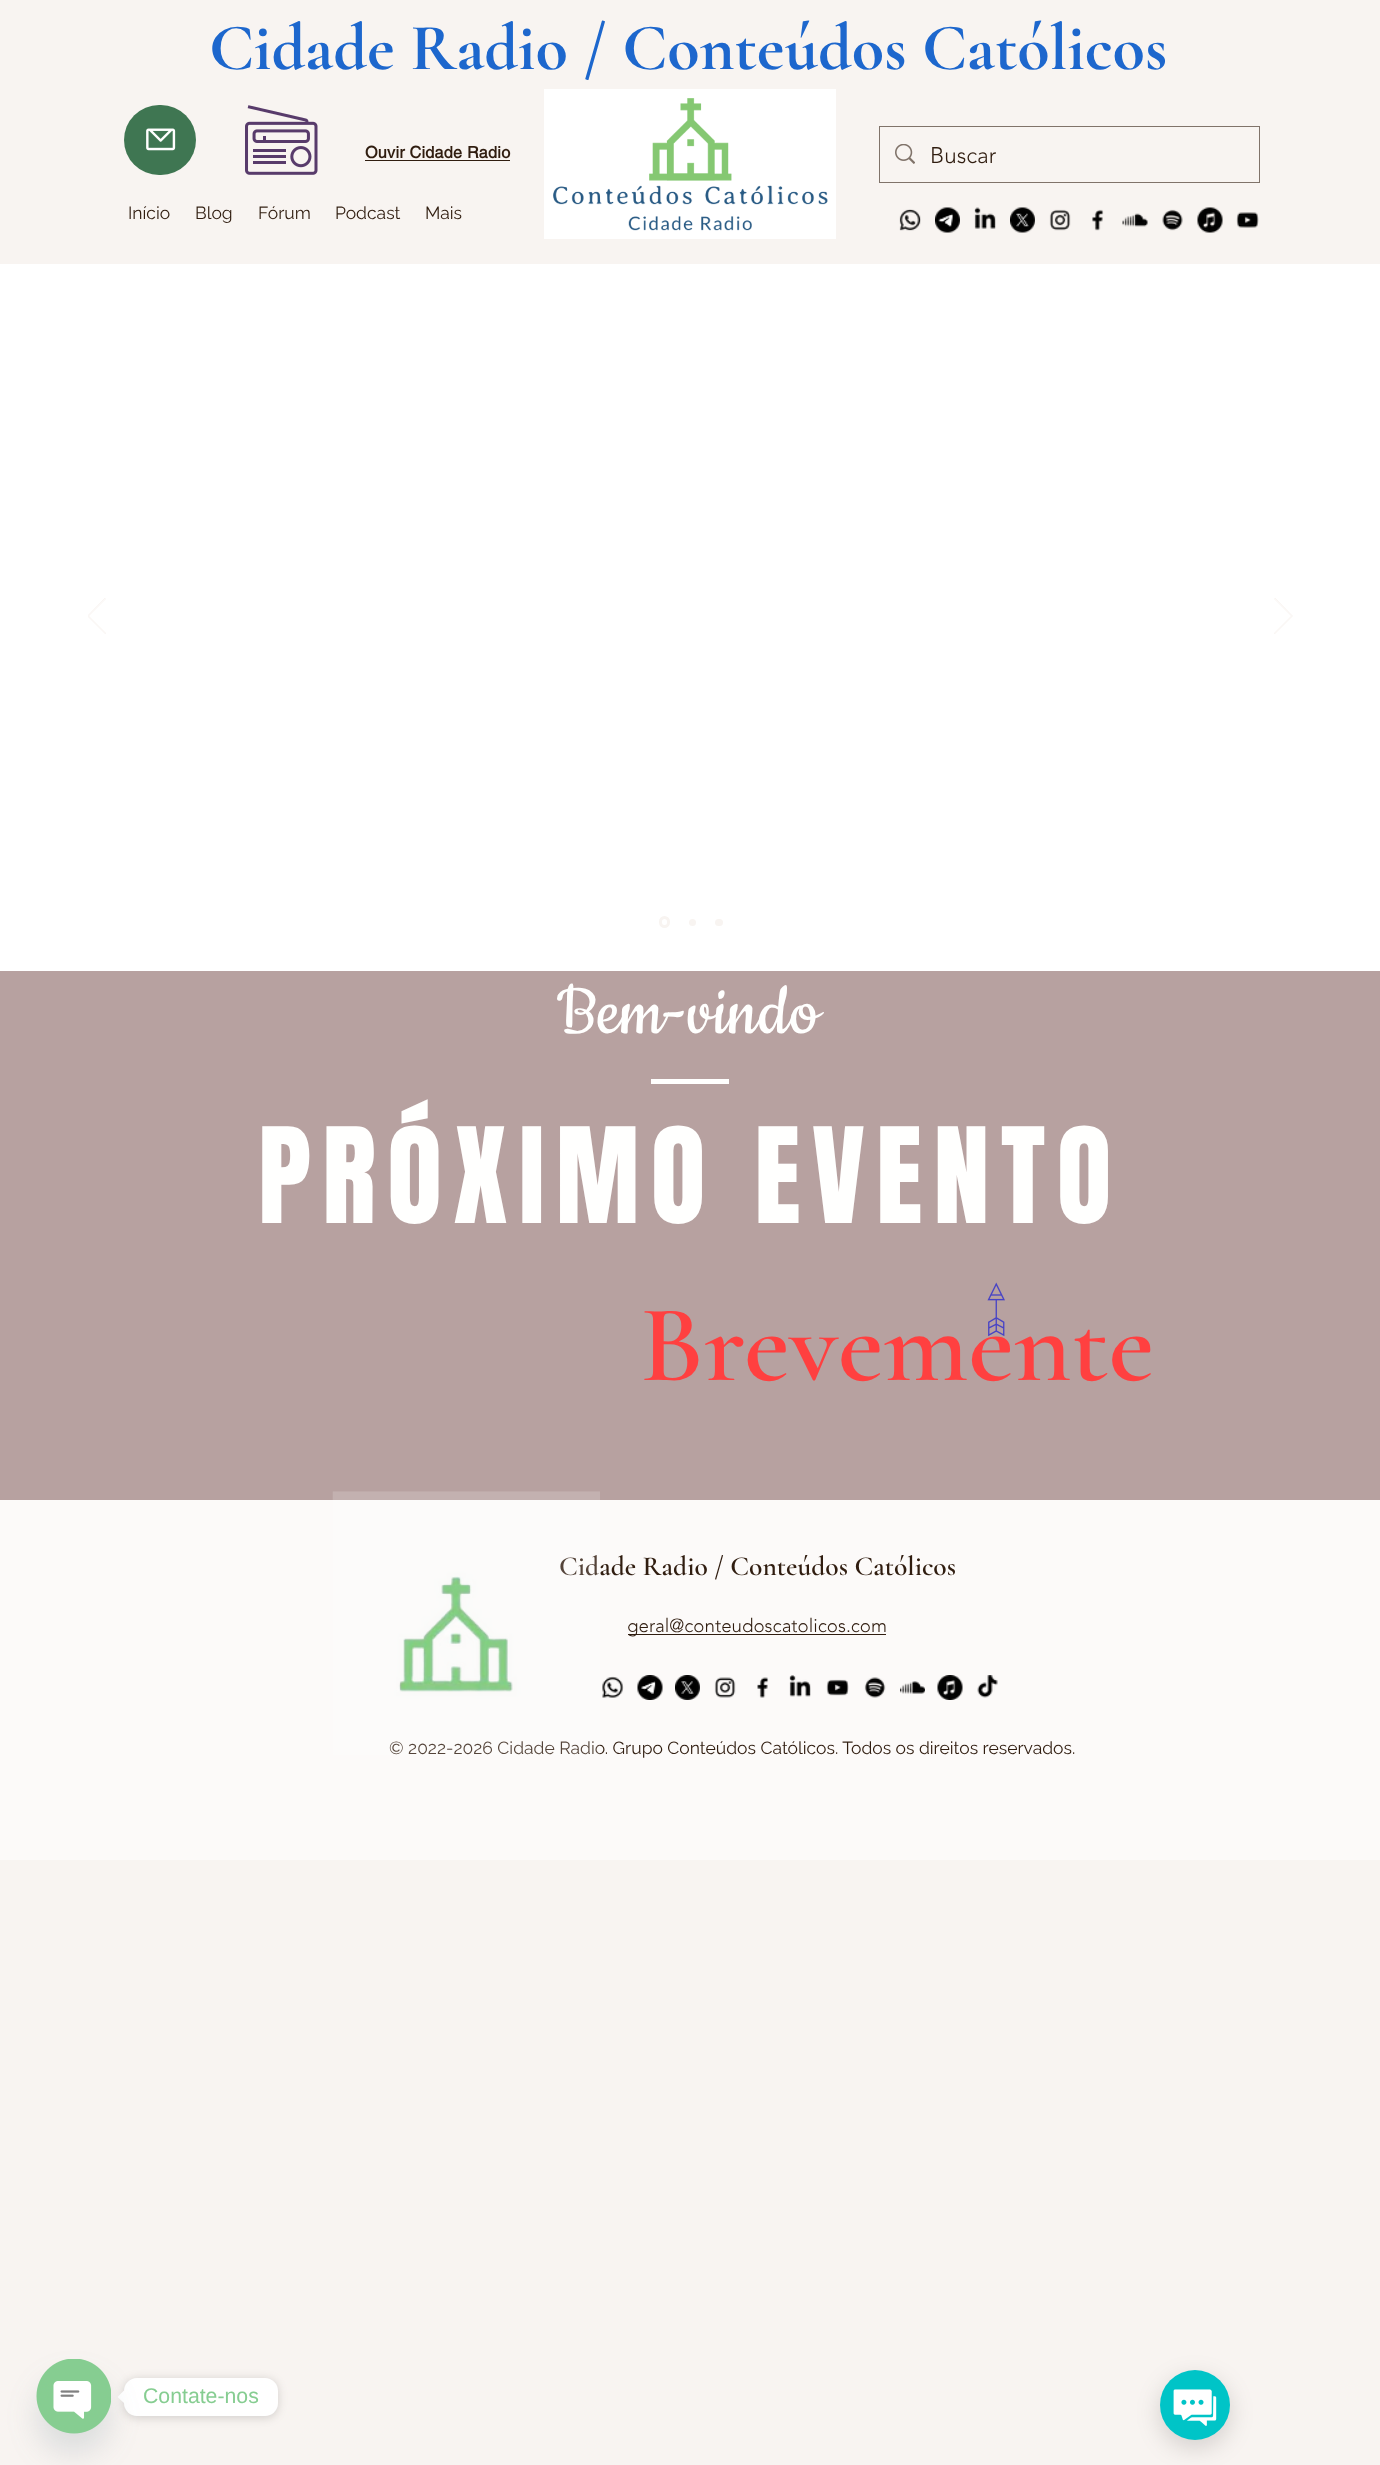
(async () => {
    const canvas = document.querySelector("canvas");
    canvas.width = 1380;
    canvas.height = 2465;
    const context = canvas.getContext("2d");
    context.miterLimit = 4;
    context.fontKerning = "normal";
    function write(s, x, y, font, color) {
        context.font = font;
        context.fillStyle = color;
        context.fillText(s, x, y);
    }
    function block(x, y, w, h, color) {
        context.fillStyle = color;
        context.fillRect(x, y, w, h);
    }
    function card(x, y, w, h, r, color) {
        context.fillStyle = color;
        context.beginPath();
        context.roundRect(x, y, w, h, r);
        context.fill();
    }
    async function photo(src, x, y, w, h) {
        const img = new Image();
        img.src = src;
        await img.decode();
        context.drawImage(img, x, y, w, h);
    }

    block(0, 0, 1380, 2465, "rgb(248, 244, 241)");
    write("Cidade Radio / Conteúdos Católicos", 209, 69, "bold 66.25px Cormorant Garamond", "rgb(29, 103, 205)");
    card(124, 105, 72, 70, 35, "rgb(63, 118, 82)");
    await photo("media/1.png", 146, 128, 30, 23);
    await photo("media/2.png", 245, 105, 73, 70);
    context.letterSpacing = "0.2px";
    write("Ouvir Cidade Radio", 365, 158, "bold 16.25px helvetica", "rgb(48, 29, 16)");
    block(365, 160, 145, 1, "rgb(48, 29, 16)");
    block(544, 89, 292, 150, "rgb(255, 255, 255)");
    await photo("media/3.png", 553, 98, 275, 133);
    context.strokeStyle = "rgb(128, 115, 106)";
    context.strokeRect(879.5, 126.5, 380, 56);
    await photo("media/4.png", 895, 144, 20, 20);
    context.letterSpacing = "0px";
    write("Buscar", 930, 163, "300 22.5px 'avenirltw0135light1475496'", "rgb(48, 29, 16)");
    write("Início", 128, 219, "17.5px Raleway", "rgb(48, 29, 16)");
    write("Blog", 195, 219, "17.5px Raleway", "rgb(48, 29, 16)");
    write("Fórum", 258, 219, "17.5px Raleway", "rgb(48, 29, 16)");
    write("Podcast", 335, 219, "17.5px Raleway", "rgb(48, 29, 16)");
    write("Mais", 425, 219, "17.5px Raleway", "rgb(48, 29, 16)");
    await photo("media/5.png", 899, 209, 22, 22);
    await photo("media/6.png", 935, 207, 25, 26);
    await photo("media/7.png", 974, 207, 22, 22);
    await photo("media/8.png", 1010, 207, 25, 26);
    await photo("media/9.png", 1049, 209, 22, 22);
    await photo("media/10.png", 1092, 209, 12, 22);
    await photo("media/11.png", 1122, 213, 26, 14);
    await photo("media/12.png", 1162, 209, 21, 22);
    await photo("media/13.png", 1197, 207, 26, 26);
    await photo("media/14.png", 1236, 212, 23, 16);
    block(0, 264, 1380, 707, "rgb(255, 255, 255)");
    context.save();
    context.beginPath();
    context.rect(88, 598, 18, 36);
    context.clip();
    context.beginPath();
    context.moveTo(105.5, 634);
    context.lineTo(87.5, 616);
    context.lineTo(105.5, 597.5);
    context.lineTo(106, 598.5);
    context.lineTo(88.5, 616);
    context.lineTo(106, 633.5);
    context.closePath();
    context.strokeStyle = "rgb(248, 244, 241)";
    context.lineWidth = 0.9;
    context.stroke();
    context.restore();
    context.save();
    context.beginPath();
    context.rect(1274, 598, 19, 36);
    context.clip();
    context.beginPath();
    context.moveTo(1274.5, 634);
    context.lineTo(1292.5, 616);
    context.lineTo(1274.5, 597.5);
    context.lineTo(1274, 598.5);
    context.lineTo(1291.5, 616);
    context.lineTo(1274, 633.5);
    context.closePath();
    context.strokeStyle = "rgb(248, 244, 241)";
    context.lineWidth = 0.9;
    context.stroke();
    context.restore();
    context.beginPath();
    context.roundRect(660.5, 917.5, 8, 9, 4);
    context.strokeStyle = "rgb(248, 244, 241)";
    context.lineWidth = 3;
    context.stroke();
    context.fillStyle = "rgb(248, 244, 241)";
    context.beginPath();
    context.arc(692.5, 922.5, 3.5, 0, Math.PI * 2);
    context.fill();
    card(715, 919, 8, 7, 3.5, "rgb(248, 244, 241)");
    block(0, 971, 1380, 529, "rgb(183, 161, 160)");
    write("Bem-vindo", 557, 1033, "80px Cookie", "rgb(255, 255, 254)");
    block(651, 1079, 78, 5, "rgb(255, 255, 254)");
    context.letterSpacing = "11.25px";
    write("PRÓXIMO EVENTO", 258, 1223, "112.5px Anton", "rgb(255, 255, 254)");
    context.letterSpacing = "0px";
    write("Brevemente", 640, 1380, "600 110px Cormorant Garamond", "rgb(255, 64, 64)");
    await photo("media/15.png", 987, 1282, 18, 55);
    block(0, 1500, 1380, 360, "rgb(252, 250, 249)");
    write("Cidade Radio / Conteúdos Católicos", 559, 1575, "600 27.5px Cormorant Garamond", "rgb(48, 29, 16)");
    write("© 2022-2026 Cidade Radio. Grupo Conteúdos Católicos. Todos os direitos reservados.", 389, 1754, "17.5px Raleway", "rgb(48, 29, 16)");
    await photo("media/16.png", 332, 1491, 268, 264);
    block(628, 1634, 258, 1, "rgb(48, 29, 16)");
    write("geral@conteudoscatolicos.com", 627, 1632, "300 18.75px 'avenirltw0135light1475496'", "rgb(48, 29, 16)");
    await photo("media/17.png", 602, 1676, 22, 22);
    await photo("media/18.png", 637, 1675, 26, 25);
    await photo("media/19.png", 675, 1675, 25, 25);
    await photo("media/20.png", 714, 1677, 22, 21);
    await photo("media/21.png", 757, 1677, 12, 21);
    await photo("media/22.png", 789, 1675, 22, 22);
    await photo("media/23.png", 826, 1679, 23, 17);
    await photo("media/24.png", 864, 1677, 22, 21);
    await photo("media/25.png", 900, 1681, 25, 13);
    await photo("media/26.png", 937, 1675, 26, 25);
    await photo("media/27.png", 977, 1675, 21, 23);
    context.fillStyle = "rgba(0, 0, 0, 0.15)";
    context.filter = "blur(5px)";
    context.beginPath();
    context.roundRect(124, 2379, 154, 39, 13);
    context.fill();
    context.filter = "none";
    card(124, 2378, 154, 38, 13, "rgb(255, 255, 255)");
    context.beginPath();
    context.moveTo(124, 2390.5);
    context.lineTo(124, 2403);
    context.lineTo(117.5, 2397);
    context.closePath();
    context.fill();
    context.fillStyle = "rgba(73, 104, 126, 0.16)";
    context.filter = "blur(15px)";
    context.beginPath();
    context.roundRect(36, 2379, 75, 75, 37.5);
    context.fill();
    context.filter = "none";
    await photo("media/28.png", 36, 2359, 75, 75);
    write("Contate-nos", 143, 2403, "21.25px Liberation Sans", "rgb(134, 205, 145)");
    context.fillStyle = "rgba(0, 0, 0, 0.15)";
    context.filter = "blur(12.5px)";
    context.beginPath();
    context.roundRect(1160, 2378, 70, 70, 35);
    context.fill();
    context.filter = "none";
    context.fillStyle = "rgb(0, 196, 199)";
    context.beginPath();
    context.arc(1195, 2405, 35, 0, Math.PI * 2);
    context.fill();
    await photo("media/29.png", 1173, 2389, 44, 37);
})();
